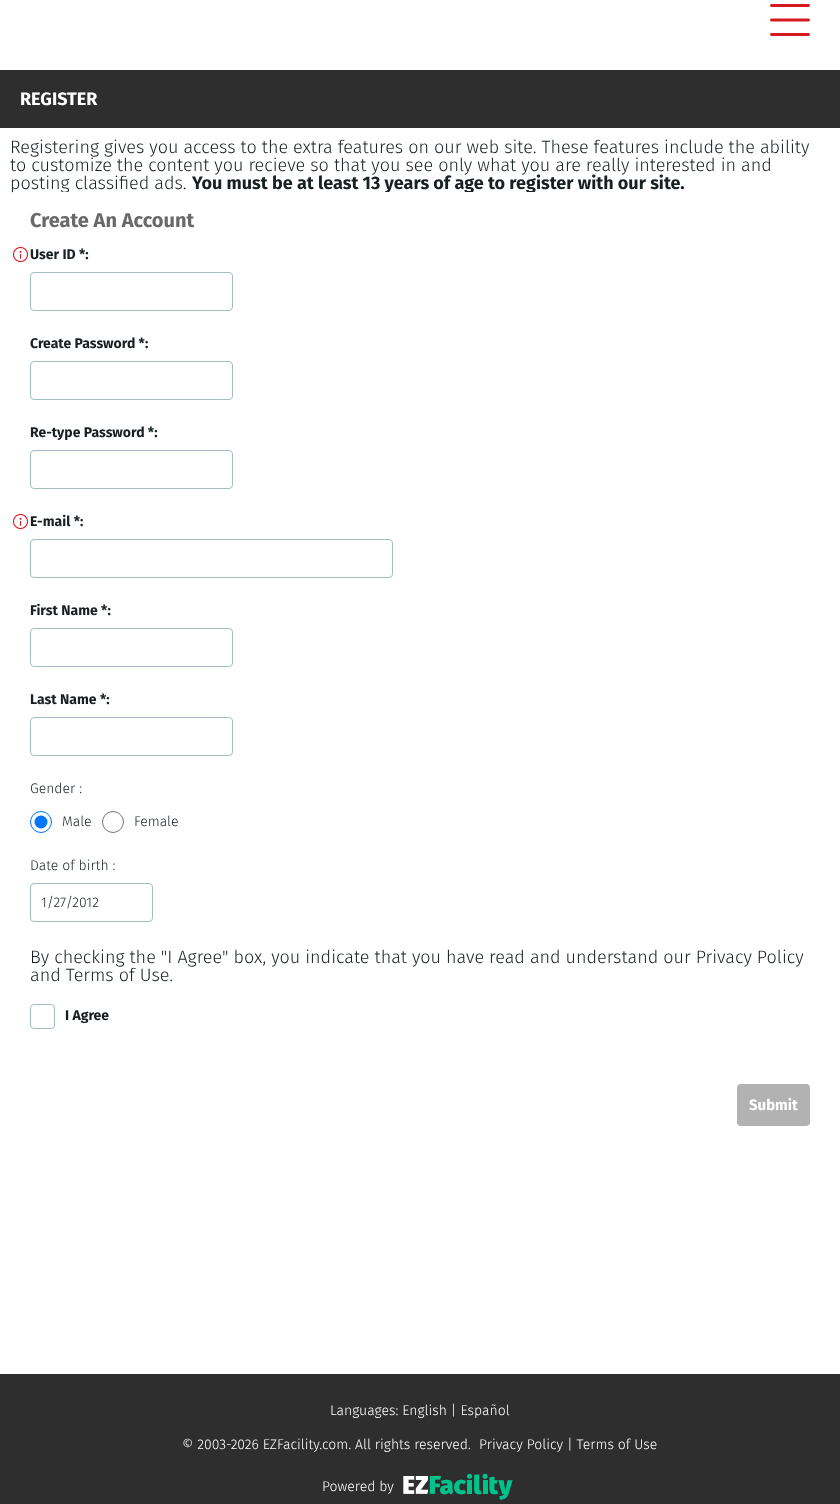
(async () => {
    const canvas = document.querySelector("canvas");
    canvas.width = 840;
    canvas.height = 1504;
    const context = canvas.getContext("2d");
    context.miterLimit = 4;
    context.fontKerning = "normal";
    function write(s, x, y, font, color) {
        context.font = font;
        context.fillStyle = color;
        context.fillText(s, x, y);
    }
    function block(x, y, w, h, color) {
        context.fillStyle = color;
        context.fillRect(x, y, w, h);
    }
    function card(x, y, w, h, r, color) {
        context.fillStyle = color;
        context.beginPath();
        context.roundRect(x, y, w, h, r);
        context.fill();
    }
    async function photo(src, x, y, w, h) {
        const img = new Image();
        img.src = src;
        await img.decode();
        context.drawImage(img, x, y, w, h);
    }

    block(0, 0, 840, 1504, "rgb(255, 255, 255)");
    context.beginPath();
    context.moveTo(808.5, 5.5);
    context.lineTo(771.5, 5.5);
    context.moveTo(808.5, 20);
    context.lineTo(771.5, 20);
    context.moveTo(808.5, 34.5);
    context.lineTo(771.5, 34.5);
    context.strokeStyle = "rgb(215, 25, 33)";
    context.lineWidth = 2.9;
    context.lineCap = "round";
    context.lineJoin = "round";
    context.stroke();
    block(0, 70, 840, 58, "rgb(46, 46, 46)");
    write("REGISTER", 20, 105, "bold 18px Fira Sans", "rgb(255, 255, 255)");
    write("Registering gives you access to the extra features on our web site. These features include the ability", 10, 153, "300 18px Fira Sans", "rgb(24, 32, 35)");
    write("to customize the content you recieve so that you see only what you are really interested in and", 10, 171, "300 18px Fira Sans", "rgb(24, 32, 35)");
    write("posting classified ads.", 10, 189, "300 18px Fira Sans", "rgb(24, 32, 35)");
    write("You must be at least 13 years of age to register with our site.", 192, 189, "bold 18px Fira Sans", "rgb(24, 32, 35)");
    card(10, 192, 820, 954, 4, "rgb(255, 255, 255)");
    write("Create An Account", 30, 227, "bold 20px Fira Sans", "rgb(105, 105, 105)");
    await photo("media/1.png", 13, 247, 15, 15);
    write("User ID *:", 30, 259, "bold 14px Fira Sans", "rgb(24, 32, 35)");
    context.beginPath();
    context.roundRect(30.5, 272.5, 202, 38, 3.5);
    context.strokeStyle = "rgb(161, 189, 198)";
    context.lineWidth = 1;
    context.lineJoin = "miter";
    context.stroke();
    write("Create Password *:", 30, 348, "bold 14px Fira Sans", "rgb(24, 32, 35)");
    context.beginPath();
    context.roundRect(30.5, 361.5, 202, 38, 3.5);
    context.stroke();
    write("Re-type Password *:", 30, 437, "bold 14px Fira Sans", "rgb(24, 32, 35)");
    context.beginPath();
    context.roundRect(30.5, 450.5, 202, 38, 3.5);
    context.stroke();
    await photo("media/1.png", 13, 514, 15, 15);
    write("E-mail *:", 30, 526, "bold 14px Fira Sans", "rgb(24, 32, 35)");
    context.beginPath();
    context.roundRect(30.5, 539.5, 362, 38, 3.5);
    context.stroke();
    write("First Name *:", 30, 615, "bold 14px Fira Sans", "rgb(24, 32, 35)");
    context.beginPath();
    context.roundRect(30.5, 628.5, 202, 38, 3.5);
    context.stroke();
    write("Last Name *:", 30, 704, "bold 14px Fira Sans", "rgb(24, 32, 35)");
    context.beginPath();
    context.roundRect(30.5, 717.5, 202, 38, 3.5);
    context.stroke();
    write("Gender :", 30, 793, "300 14px Fira Sans", "rgb(24, 32, 35)");
    context.beginPath();
    context.arc(41, 822, 10.5, 0, Math.PI * 2);
    context.strokeStyle = "rgb(0, 117, 255)";
    context.stroke();
    context.fillStyle = "rgb(0, 117, 255)";
    context.beginPath();
    context.arc(41, 822, 6.5, 0, Math.PI * 2);
    context.fill();
    write("Male", 62, 826, "300 14px Fira Sans", "rgb(24, 32, 35)");
    context.beginPath();
    context.arc(113, 822, 10.5, 0, Math.PI * 2);
    context.strokeStyle = "rgb(118, 118, 118)";
    context.stroke();
    write("Female", 134, 826, "300 14px Fira Sans", "rgb(24, 32, 35)");
    write("Date of birth :", 30, 870, "300 14px Fira Sans", "rgb(24, 32, 35)");
    context.beginPath();
    context.roundRect(30.5, 883.5, 122, 38, 3.5);
    context.strokeStyle = "rgb(161, 189, 198)";
    context.stroke();
    write("1/27/2012", 41, 907, "300 14px Fira Sans", "rgb(24, 32, 35)");
    write("By checking the \"I Agree\" box, you indicate that you have read and understand our Privacy Policy", 30, 963, "300 18px Fira Sans", "rgb(24, 32, 35)");
    write("and Terms of Use.", 30, 981, "300 18px Fira Sans", "rgb(24, 32, 35)");
    context.beginPath();
    context.roundRect(30.5, 1004.5, 24, 24, 3.5);
    context.stroke();
    write("I Agree", 65, 1020, "bold 14px Fira Sans", "rgb(24, 32, 35)");
    context.fillStyle = "rgb(178, 178, 178)";
    context.beginPath();
    context.roundRect(738, 1085, 71, 40, 3);
    context.fill();
    context.strokeStyle = "rgb(178, 178, 178)";
    context.lineWidth = 2;
    context.stroke();
    write("Submit", 749, 1110, "bold 15px Fira Sans", "rgb(255, 255, 255)");
    block(0, 1374, 840, 130, "rgb(46, 46, 46)");
    write("Languages: English | Español", 330, 1415, "300 14px Fira Sans", "rgb(255, 255, 255)");
    write("© 2003-2026 EZFacility.com. All rights reserved.", 182, 1449, "300 14px Fira Sans", "rgb(255, 255, 255)");
    write("Privacy Policy | Terms of Use", 479, 1449, "300 14px Fira Sans", "rgb(255, 255, 255)");
    write("Powered by", 322, 1491, "300 14px Fira Sans", "rgb(255, 255, 255)");
    await photo("media/2.png", 403, 1473, 110, 27);
})();
